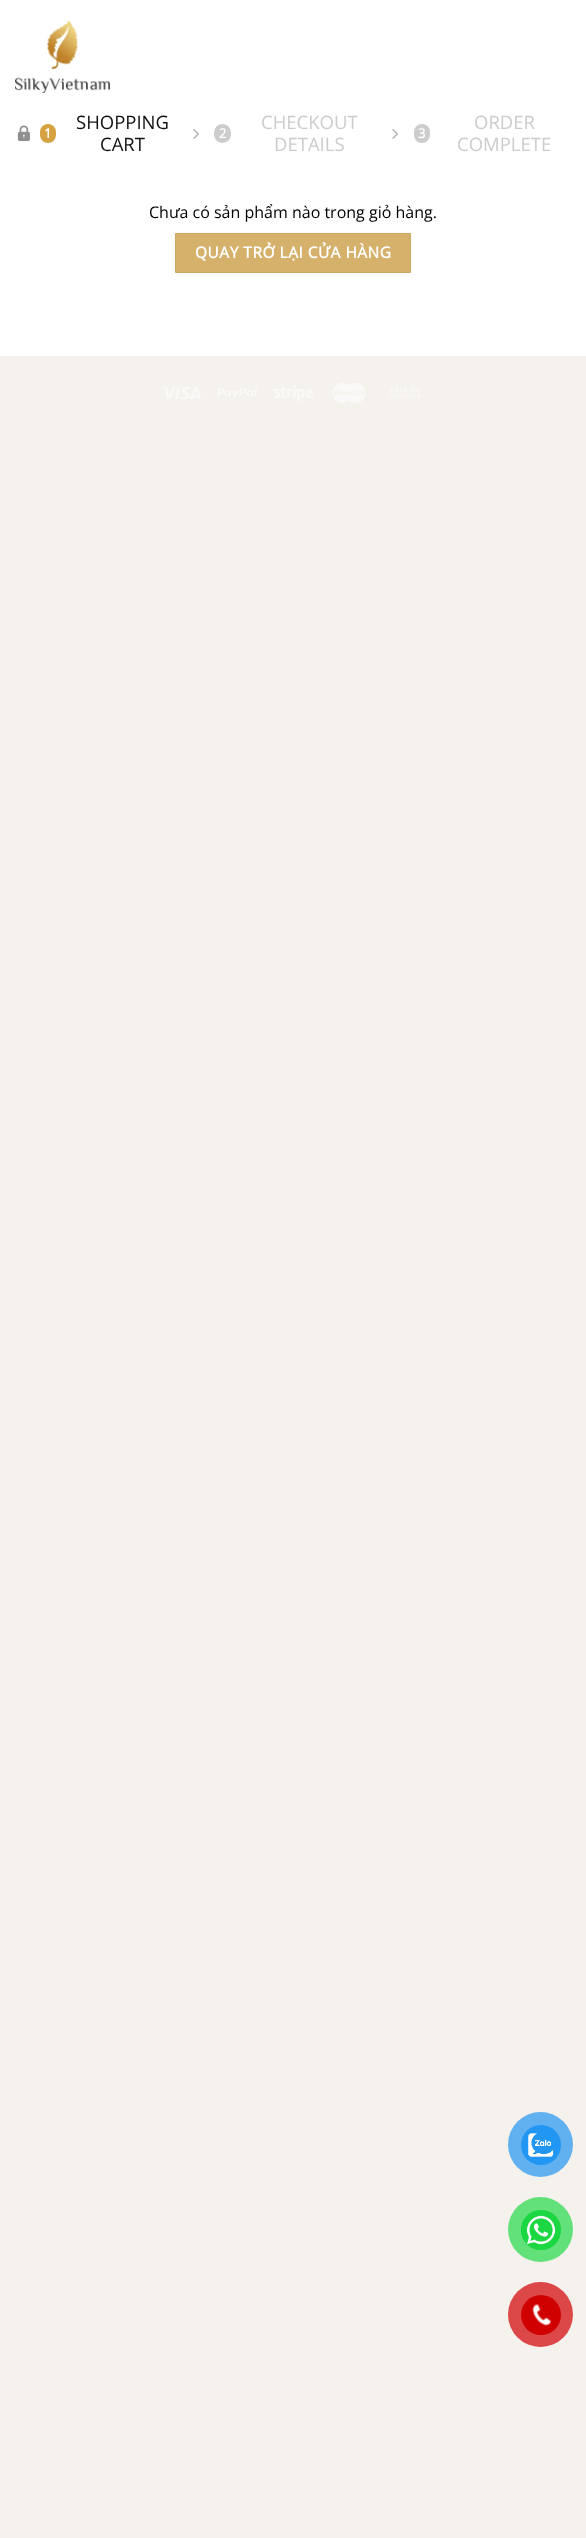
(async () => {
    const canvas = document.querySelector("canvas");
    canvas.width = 586;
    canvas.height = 2538;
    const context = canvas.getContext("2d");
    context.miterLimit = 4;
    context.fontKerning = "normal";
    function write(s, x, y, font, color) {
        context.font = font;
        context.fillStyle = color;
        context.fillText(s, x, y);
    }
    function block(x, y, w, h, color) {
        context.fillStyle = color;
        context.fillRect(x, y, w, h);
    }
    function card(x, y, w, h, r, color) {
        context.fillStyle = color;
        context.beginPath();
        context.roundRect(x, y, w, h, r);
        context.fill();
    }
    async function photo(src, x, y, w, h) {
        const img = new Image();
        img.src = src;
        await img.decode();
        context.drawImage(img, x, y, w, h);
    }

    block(0, 0, 586, 2538, "rgb(245, 241, 236)");
    block(0, 0, 586, 356, "rgb(255, 255, 255)");
    await photo("media/1.png", 15, 21, 95, 72);
    await photo("media/2.png", 17, 125, 13, 16);
    write("SHOPPING", 76, 129, "18.5px Open Sans", "rgb(17, 17, 17)");
    card(40, 124, 16, 19, 8, "rgb(213, 162, 66)");
    write("1", 44, 138, "bold 13px Open Sans", "rgb(255, 255, 255)");
    write("CART", 100, 151, "18.5px Open Sans", "rgb(17, 17, 17)");
    await photo("media/3.png", 193, 129, 6, 10);
    write("CHECKOUT", 261, 129, "18.5px Open Sans", "rgb(204, 204, 204)");
    card(214, 124, 17, 19, 8.5, "rgb(204, 204, 204)");
    write("2", 219, 138, "bold 13px Open Sans", "rgb(255, 255, 255)");
    write("DETAILS", 274, 151, "18.5px Open Sans", "rgb(204, 204, 204)");
    await photo("media/3.png", 392, 129, 6, 10);
    write("ORDER", 474, 129, "18.5px Open Sans", "rgb(204, 204, 204)");
    card(414, 124, 16, 19, 8, "rgb(204, 204, 204)");
    write("3", 418, 138, "bold 13px Open Sans", "rgb(255, 255, 255)");
    write("COMPLETE", 457, 151, "18.5px Open Sans", "rgb(204, 204, 204)");
    write("Chưa có sản phẩm nào trong giỏ hàng.", 149, 218, "16px Open Sans", "rgb(0, 0, 0)");
    context.fillStyle = "rgb(214, 177, 107)";
    context.beginPath();
    context.rect(175.5, 233.5, 235, 39);
    context.fill();
    context.strokeStyle = "rgb(203, 168, 102)";
    context.stroke();
    context.letterSpacing = "0.5px";
    write("QUAY TRỞ LẠI CỬA HÀNG", 195, 258, "bold 15.5px Open Sans", "rgb(255, 255, 255)");
    await photo("media/4.png", 162, 386, 39, 14);
    await photo("media/5.png", 217, 388, 40, 10);
    await photo("media/6.png", 273, 385, 40, 16);
    await photo("media/7.png", 332, 383, 34, 20);
    await photo("media/8.png", 389, 387, 32, 12);
    context.fillStyle = "rgb(97, 177, 241)";
    context.beginPath();
    context.arc(540.5, 2144.5, 32.5, 0, Math.PI * 2);
    context.fill();
    context.fillStyle = "rgb(33, 150, 243)";
    context.beginPath();
    context.arc(541, 2145, 20, 0, Math.PI * 2);
    context.fill();
    await photo("media/9.png", 528, 2133, 26, 24);
    context.fillStyle = "rgb(98, 224, 121)";
    context.beginPath();
    context.arc(540.5, 2229.5, 32.5, 0, Math.PI * 2);
    context.fill();
    context.fillStyle = "rgb(28, 215, 65)";
    context.beginPath();
    context.arc(541, 2230, 20, 0, Math.PI * 2);
    context.fill();
    await photo("media/10.png", 521, 2210, 40, 40);
    context.fillStyle = "rgb(220, 72, 71)";
    context.beginPath();
    context.arc(540.5, 2314.5, 32.5, 0, Math.PI * 2);
    context.fill();
    context.fillStyle = "rgb(209, 0, 0)";
    context.beginPath();
    context.arc(541, 2315, 20, 0, Math.PI * 2);
    context.fill();
    await photo("media/11.png", 532, 2304, 19, 22);
})();
